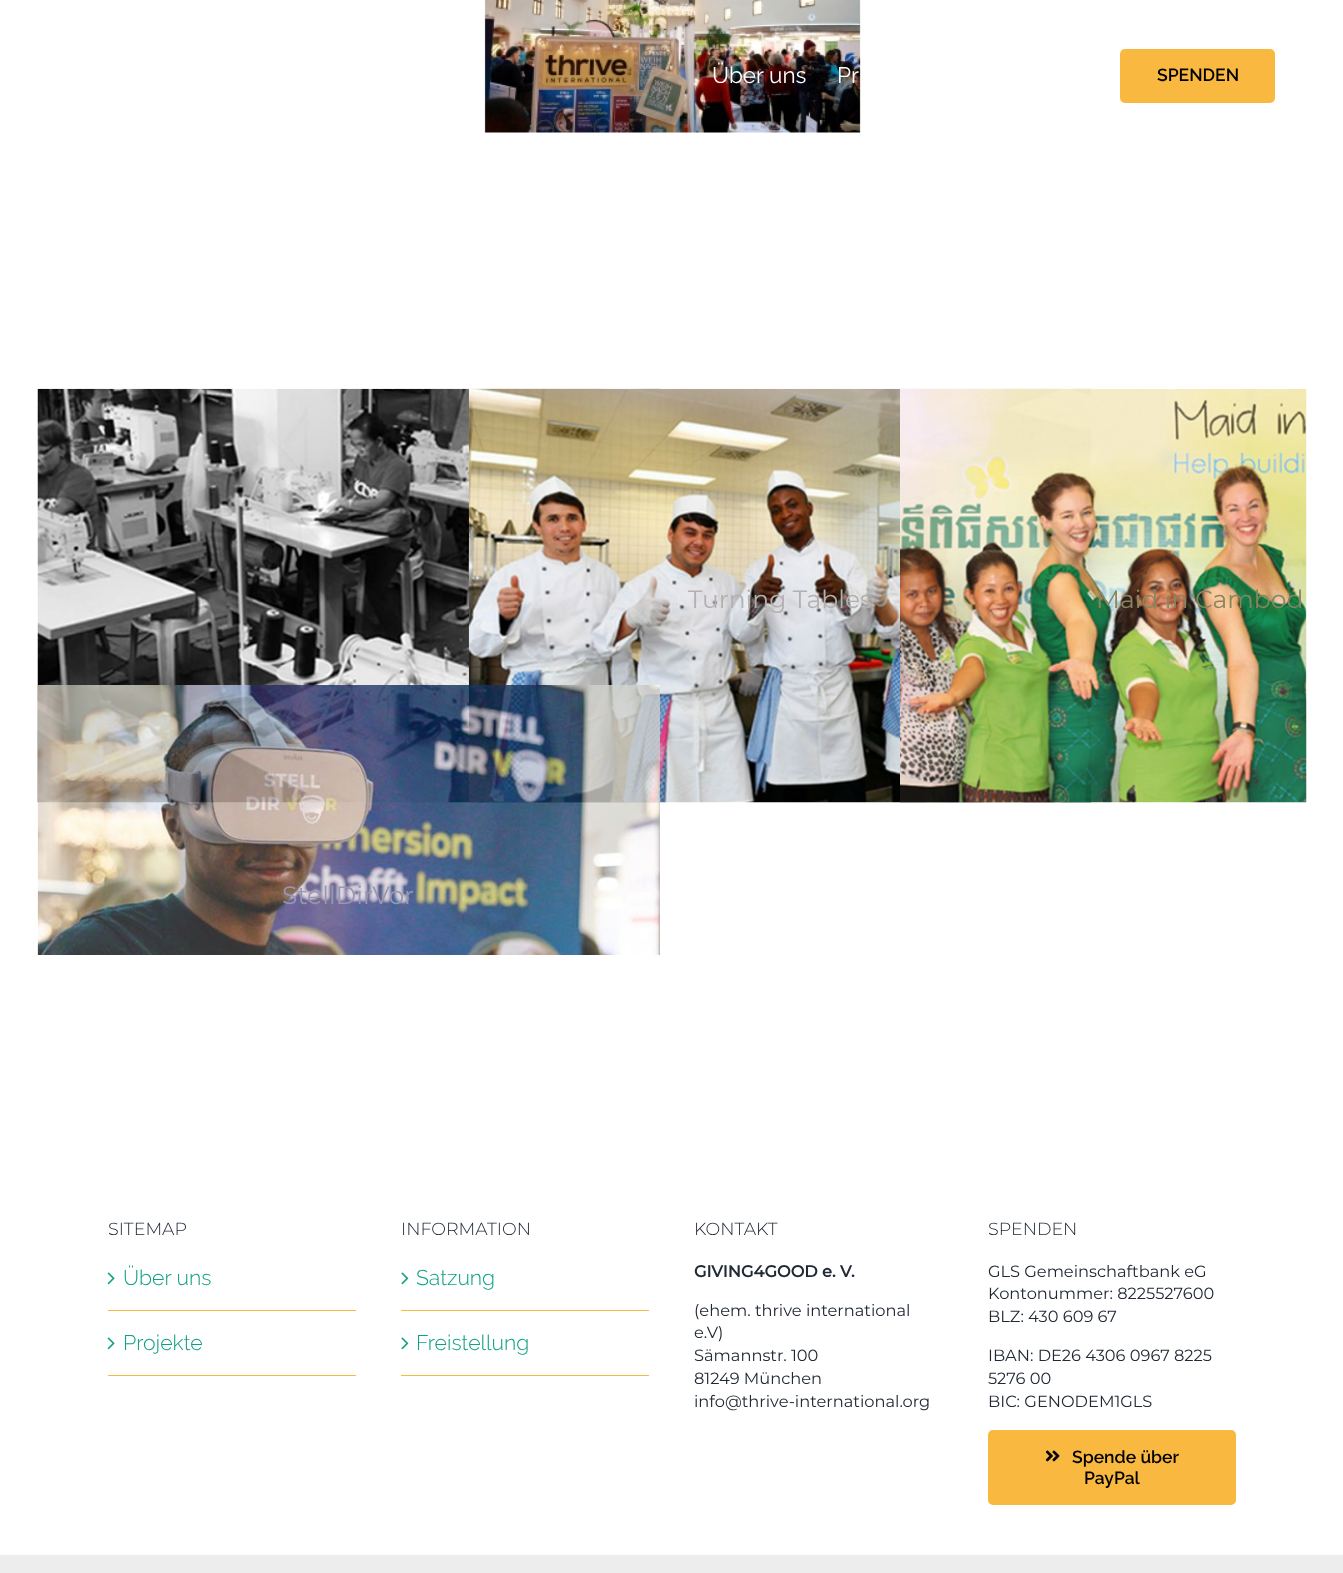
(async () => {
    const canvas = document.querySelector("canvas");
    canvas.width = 1343;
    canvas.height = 1573;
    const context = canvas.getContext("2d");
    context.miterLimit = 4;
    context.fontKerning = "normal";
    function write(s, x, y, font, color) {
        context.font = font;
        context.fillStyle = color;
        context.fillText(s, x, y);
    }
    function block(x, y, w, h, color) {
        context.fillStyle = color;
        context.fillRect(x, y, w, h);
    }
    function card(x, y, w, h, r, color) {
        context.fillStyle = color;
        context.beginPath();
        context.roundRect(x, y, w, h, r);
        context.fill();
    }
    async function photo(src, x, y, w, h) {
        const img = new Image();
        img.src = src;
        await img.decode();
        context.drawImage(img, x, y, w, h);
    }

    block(0, 0, 1343, 1573, "rgb(255, 255, 255)");
    await photo("media/1.png", 484, 0, 377, 133);
    write("Über uns", 712, 83, "22.5px Raleway", "rgb(255, 255, 255)");
    write("Pr", 837, 83, "22.5px Raleway", "rgb(255, 255, 255)");
    card(1120, 49, 155, 54, 5, "rgb(249, 185, 64)");
    write("SPENDEN", 1157, 81, "600 17.5px Raleway", "rgb(0, 0, 0)");
    await photo("media/2.png", 37, 388, 623, 415);
    await photo("media/3.png", 468, 388, 624, 415);
    write("Turning Tables", 688, 608, "25px Montserrat", "rgb(180, 176, 177)");
    await photo("media/4.png", 900, 389, 407, 414);
    write("Maid in Cambod", 1096, 608, "25px Montserrat", "rgb(136, 134, 97)");
    await photo("media/5.png", 37, 685, 623, 270);
    write("StellDirVor", 282, 904, "25px Montserrat", "rgb(154, 150, 176)");
    write("SITEMAP", 108, 1235, "300 17.5px Montserrat", "rgb(33, 41, 52)");
    block(108, 1310, 248, 1, "rgb(249, 185, 64)");
    await photo("media/6.png", 107, 1272, 8, 13);
    write("Über uns", 123, 1285, "300 21.25px Raleway", "rgb(16, 160, 133)");
    block(108, 1375, 248, 1, "rgb(249, 185, 64)");
    await photo("media/6.png", 107, 1337, 8, 13);
    write("Projekte", 123, 1350, "300 21.25px Raleway", "rgb(16, 160, 133)");
    write("INFORMATION", 401, 1235, "300 17.5px Montserrat", "rgb(33, 41, 52)");
    block(401, 1310, 248, 1, "rgb(249, 185, 64)");
    await photo("media/7.png", 401, 1272, 8, 13);
    write("Satzung", 416, 1285, "300 21.25px Raleway", "rgb(16, 160, 133)");
    block(401, 1375, 248, 1, "rgb(249, 185, 64)");
    await photo("media/7.png", 401, 1337, 8, 13);
    write("Freistellung", 416, 1350, "300 21.25px Raleway", "rgb(16, 160, 133)");
    write("KONTAKT", 694, 1235, "300 17.5px Montserrat", "rgb(33, 41, 52)");
    write("GIVING4GOOD e. V.", 694, 1277, "bold 16.25px Montserrat", "rgb(33, 41, 52)");
    write("(ehem. thrive international", 694, 1316, "16.25px Montserrat", "rgb(33, 41, 52)");
    write("e.V)", 694, 1338, "16.25px Montserrat", "rgb(33, 41, 52)");
    write("Sämannstr. 100", 694, 1361, "16.25px Montserrat", "rgb(33, 41, 52)");
    write("81249 München", 694, 1384, "16.25px Montserrat", "rgb(33, 41, 52)");
    write("info@thrive-international.org", 694, 1407, "16.25px Montserrat", "rgb(33, 41, 52)");
    write("SPENDEN", 988, 1235, "300 17.5px Montserrat", "rgb(33, 41, 52)");
    write("GLS Gemeinschaftbank eG", 988, 1277, "16.25px Montserrat", "rgb(33, 41, 52)");
    write("Kontonummer: 8225527600", 988, 1299, "16.25px Montserrat", "rgb(33, 41, 52)");
    write("BLZ: 430 609 67", 988, 1322, "16.25px Montserrat", "rgb(33, 41, 52)");
    write("IBAN: DE26 4306 0967 8225", 988, 1361, "16.25px Montserrat", "rgb(33, 41, 52)");
    write("5276 00", 988, 1384, "16.25px Montserrat", "rgb(33, 41, 52)");
    write("BIC: GENODEM1GLS", 988, 1407, "16.25px Montserrat", "rgb(33, 41, 52)");
    card(988, 1430, 248, 75, 5, "rgb(249, 185, 64)");
    await photo("media/8.png", 1045, 1450, 15, 12);
    write("Spende über", 1072, 1463, "600 17.5px Raleway", "rgb(0, 0, 0)");
    write("PayPal", 1084, 1484, "600 17.5px Raleway", "rgb(0, 0, 0)");
    block(0, 1555, 1343, 18, "rgb(237, 237, 237)");
})();
